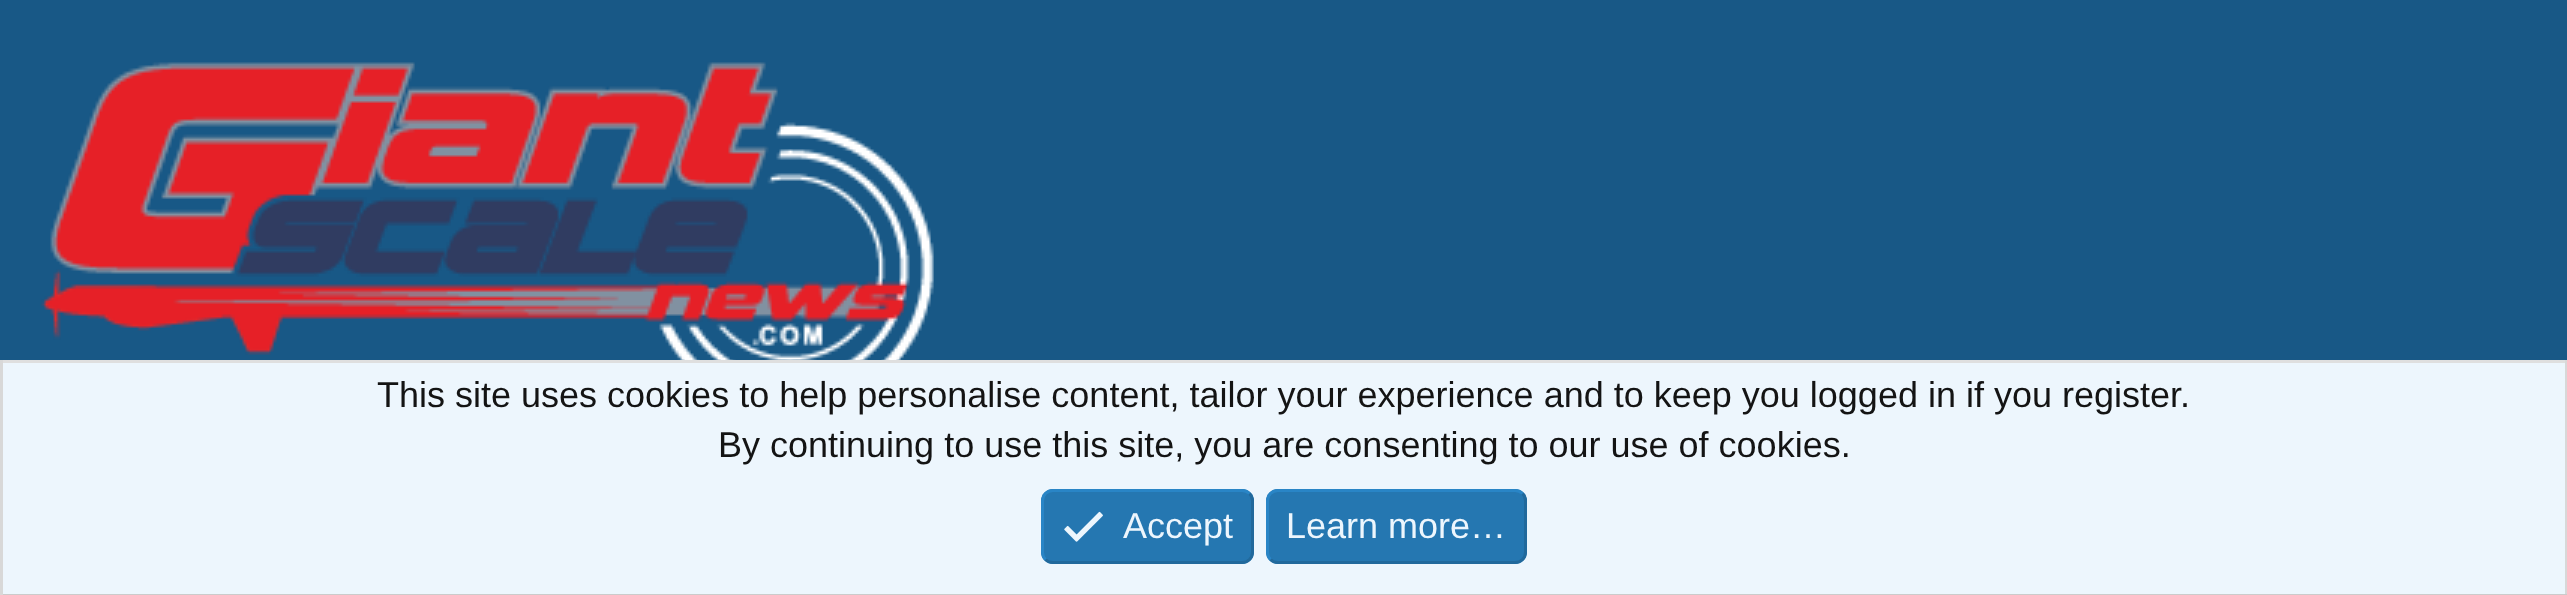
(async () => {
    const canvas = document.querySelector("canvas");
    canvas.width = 2567;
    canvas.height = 595;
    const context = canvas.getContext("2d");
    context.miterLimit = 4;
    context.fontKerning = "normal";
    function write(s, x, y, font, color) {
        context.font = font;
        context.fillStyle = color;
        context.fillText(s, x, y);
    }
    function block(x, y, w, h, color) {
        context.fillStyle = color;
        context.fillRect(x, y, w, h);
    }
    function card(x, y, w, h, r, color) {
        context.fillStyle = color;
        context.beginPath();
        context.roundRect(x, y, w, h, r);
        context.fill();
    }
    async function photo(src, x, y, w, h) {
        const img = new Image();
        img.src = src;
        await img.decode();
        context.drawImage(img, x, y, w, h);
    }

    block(0, 0, 2567, 595, "rgb(24, 88, 134)");
    await photo("media/1.png", 41, 62, 893, 298);
    block(3, 363, 2562, 231, "rgb(237, 246, 253)");
    block(0, 360, 2567, 3, "rgb(223, 223, 223)");
    block(2565, 360, 2, 235, "rgb(216, 216, 216)");
    block(0, 594, 2567, 1, "rgb(203, 203, 203)");
    block(0, 360, 3, 235, "rgb(216, 216, 216)");
    write("This site uses cookies to help personalise content, tailor your experience and to keep you logged in if you register.", 377, 407, "36px Liberation Sans", "rgb(20, 20, 20)");
    write("By continuing to use this site, you are consenting to our use of cookies.", 718, 457, "36px Liberation Sans", "rgb(20, 20, 20)");
    card(1041, 489, 213, 75, 12, "rgb(37, 119, 177)");
    context.beginPath();
    context.moveTo(1249.5, 493.5);
    context.bezierCurveTo(1251.5, 495.5, 1252.5, 498, 1252.5, 501);
    context.lineTo(1252.5, 552);
    context.bezierCurveTo(1252.5, 555, 1251.5, 557.5, 1249.5, 559.5);
    context.bezierCurveTo(1247.5, 561.5, 1245, 562.5, 1242, 562.5);
    context.lineTo(1053, 562.5);
    context.bezierCurveTo(1050, 562.5, 1047.5, 561.5, 1045.5, 559.5);
    context.strokeStyle = "rgb(33, 105, 156)";
    context.lineWidth = 3;
    context.stroke();
    context.beginPath();
    context.moveTo(1045.5, 559.5);
    context.bezierCurveTo(1043.5, 557.5, 1042.5, 555, 1042.5, 552);
    context.lineTo(1042.5, 501);
    context.bezierCurveTo(1042.5, 498, 1043.5, 495.5, 1045.5, 493.5);
    context.bezierCurveTo(1047.5, 491.5, 1050, 490.5, 1053, 490.5);
    context.lineTo(1242, 490.5);
    context.bezierCurveTo(1245, 490.5, 1247.5, 491.5, 1249.5, 493.5);
    context.strokeStyle = "rgb(41, 133, 198)";
    context.stroke();
    await photo("media/2.png", 1064, 511, 39, 31);
    write("Accept", 1123, 538, "36px Liberation Sans", "rgb(237, 246, 253)");
    card(1266, 489, 261, 75, 12, "rgb(37, 119, 177)");
    context.beginPath();
    context.moveTo(1522.5, 493.5);
    context.bezierCurveTo(1524.5, 495.5, 1525.5, 498, 1525.5, 501);
    context.lineTo(1525.5, 552);
    context.bezierCurveTo(1525.5, 555, 1524.5, 557.5, 1522.5, 559.5);
    context.bezierCurveTo(1520.5, 561.5, 1518, 562.5, 1515, 562.5);
    context.lineTo(1278, 562.5);
    context.bezierCurveTo(1275, 562.5, 1272.5, 561.5, 1270.5, 559.5);
    context.strokeStyle = "rgb(33, 105, 156)";
    context.stroke();
    context.beginPath();
    context.moveTo(1270.5, 559.5);
    context.bezierCurveTo(1268.5, 557.5, 1267.5, 555, 1267.5, 552);
    context.lineTo(1267.5, 501);
    context.bezierCurveTo(1267.5, 498, 1268.5, 495.5, 1270.5, 493.5);
    context.bezierCurveTo(1272.5, 491.5, 1275, 490.5, 1278, 490.5);
    context.lineTo(1515, 490.5);
    context.bezierCurveTo(1518, 490.5, 1520.5, 491.5, 1522.5, 493.5);
    context.strokeStyle = "rgb(41, 133, 198)";
    context.stroke();
    write("Learn more…", 1286, 538, "36px Liberation Sans", "rgb(237, 246, 253)");
})();
